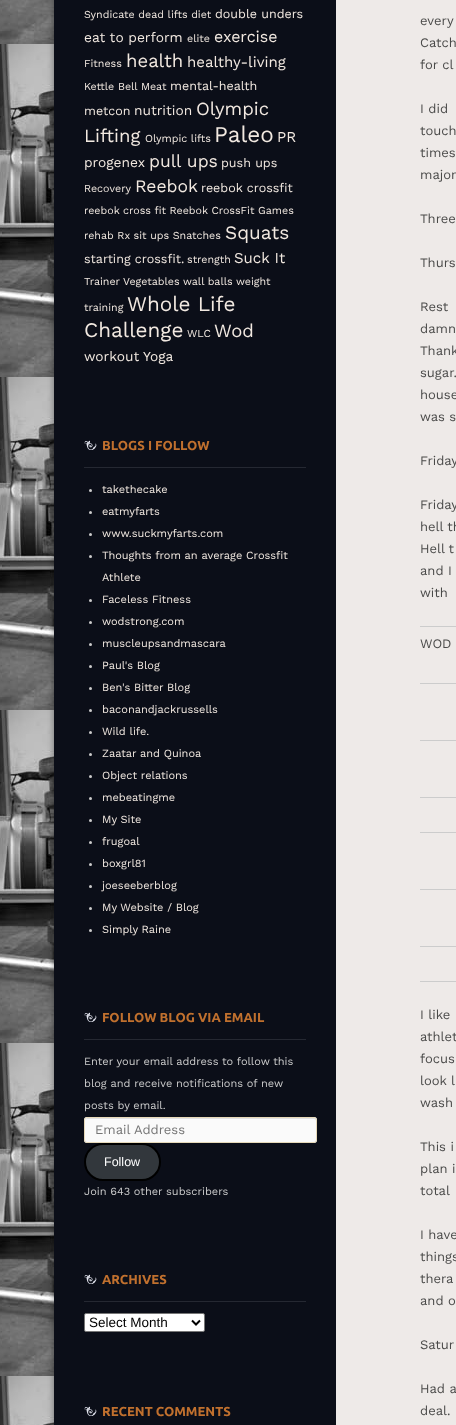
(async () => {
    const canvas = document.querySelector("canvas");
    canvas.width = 456;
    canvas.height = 1425;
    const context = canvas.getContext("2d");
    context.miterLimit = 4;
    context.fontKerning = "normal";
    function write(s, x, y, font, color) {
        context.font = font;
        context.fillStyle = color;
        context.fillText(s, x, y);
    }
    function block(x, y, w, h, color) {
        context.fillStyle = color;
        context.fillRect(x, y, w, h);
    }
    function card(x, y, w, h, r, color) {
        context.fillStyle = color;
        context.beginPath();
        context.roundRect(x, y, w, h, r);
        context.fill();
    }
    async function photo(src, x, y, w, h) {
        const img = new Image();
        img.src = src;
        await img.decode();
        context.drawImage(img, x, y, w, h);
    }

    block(0, 0, 456, 1425, "rgb(255, 255, 255)");
    await photo("media/1.png", 0, 0, 54, 1425);
    context.fillStyle = "rgba(0, 0, 0, 0.4)";
    context.filter = "blur(3px)";
    context.beginPath();
    context.roundRect(54, -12, 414, 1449, 3);
    context.fill();
    context.filter = "none";
    await photo("media/2.png", 54, 0, 402, 1425);
    write("Syndicate dead lifts diet", 84, 18, "10.7px Work Sans", "rgb(242, 233, 225)");
    write("double unders", 215, 18, "12.5px Work Sans", "rgb(242, 233, 225)");
    write("eat to perform", 84, 42, "13.75px Work Sans", "rgb(242, 233, 225)");
    write("elite", 187, 42, "10.7px Work Sans", "rgb(242, 233, 225)");
    write("exercise", 214, 42, "16px Work Sans", "rgb(242, 233, 225)");
    write("Fitness", 84, 67, "10.7px Work Sans", "rgb(242, 233, 225)");
    write("health", 126, 67, "18.5px Work Sans", "rgb(242, 233, 225)");
    write("healthy-living", 187, 67, "15px Work Sans", "rgb(242, 233, 225)");
    write("Kettle Bell Meat", 84, 90, "10.7px Work Sans", "rgb(242, 233, 225)");
    write("mental-health", 170, 90, "12.5px Work Sans", "rgb(242, 233, 225)");
    write("metcon", 84, 115, "12.5px Work Sans", "rgb(242, 233, 225)");
    write("nutrition", 134, 115, "13.75px Work Sans", "rgb(242, 233, 225)");
    write("Olympic", 196, 115, "18.5px Work Sans", "rgb(242, 233, 225)");
    write("Lifting", 84, 142, "18.5px Work Sans", "rgb(242, 233, 225)");
    write("Olympic lifts", 145, 142, "10.7px Work Sans", "rgb(242, 233, 225)");
    write("Paleo", 214, 142, "22.5px Work Sans", "rgb(242, 233, 225)");
    write("PR", 277, 142, "15px Work Sans", "rgb(242, 233, 225)");
    write("progenex", 84, 167, "13.75px Work Sans", "rgb(242, 233, 225)");
    write("pull ups", 149, 167, "17.5px Work Sans", "rgb(242, 233, 225)");
    write("push ups", 221, 167, "12.5px Work Sans", "rgb(242, 233, 225)");
    write("Recovery", 84, 192, "10.7px Work Sans", "rgb(242, 233, 225)");
    write("Reebok", 135, 192, "17.5px Work Sans", "rgb(242, 233, 225)");
    write("reebok crossfit", 201, 192, "12.5px Work Sans", "rgb(242, 233, 225)");
    write("reebok cross fit Reebok CrossFit Games", 84, 214, "10.7px Work Sans", "rgb(242, 233, 225)");
    write("rehab Rx sit ups Snatches", 84, 239, "10.7px Work Sans", "rgb(242, 233, 225)");
    write("Squats", 225, 239, "19px Work Sans", "rgb(242, 233, 225)");
    write("starting crossfit.", 84, 263, "12.5px Work Sans", "rgb(242, 233, 225)");
    write("strength", 187, 263, "10.7px Work Sans", "rgb(242, 233, 225)");
    write("Suck It", 234, 263, "15px Work Sans", "rgb(242, 233, 225)");
    write("Trainer Vegetables wall balls weight", 84, 285, "10.7px Work Sans", "rgb(242, 233, 225)");
    write("training", 84, 311, "10.7px Work Sans", "rgb(242, 233, 225)");
    write("Whole Life", 127, 311, "20.75px Work Sans", "rgb(242, 233, 225)");
    write("Challenge", 84, 337, "20.75px Work Sans", "rgb(242, 233, 225)");
    write("WLC", 187, 337, "10.7px Work Sans", "rgb(242, 233, 225)");
    write("Wod", 214, 337, "18.5px Work Sans", "rgb(242, 233, 225)");
    write("workout", 84, 361, "13.75px Work Sans", "rgb(242, 233, 225)");
    write("Yoga", 143, 361, "13.75px Work Sans", "rgb(242, 233, 225)");
    await photo("media/3.png", 84, 440, 13, 10);
    block(84, 467, 222, 1, "rgb(37, 40, 50)");
    write("BLOGS I FOLLOW", 102, 450, "bold 13px Ubuntu", "rgb(192, 112, 46)");
    context.fillStyle = "rgb(204, 204, 204)";
    context.beginPath();
    context.arc(90.5, 490.5, 1.5, 0, Math.PI * 2);
    context.fill();
    write("takethecake", 102, 493, "11px Work Sans", "rgb(242, 233, 225)");
    context.fillStyle = "rgb(204, 204, 204)";
    context.beginPath();
    context.arc(90.5, 512.5, 1.5, 0, Math.PI * 2);
    context.fill();
    write("eatmyfarts", 102, 515, "11px Work Sans", "rgb(242, 233, 225)");
    context.fillStyle = "rgb(204, 204, 204)";
    context.beginPath();
    context.arc(90.5, 534.5, 1.5, 0, Math.PI * 2);
    context.fill();
    write("www.suckmyfarts.com", 102, 537, "11px Work Sans", "rgb(242, 233, 225)");
    context.fillStyle = "rgb(204, 204, 204)";
    context.beginPath();
    context.arc(90.5, 556.5, 1.5, 0, Math.PI * 2);
    context.fill();
    write("Thoughts from an average Crossfit", 102, 559, "11px Work Sans", "rgb(242, 233, 225)");
    write("Athlete", 102, 581, "11px Work Sans", "rgb(242, 233, 225)");
    context.fillStyle = "rgb(204, 204, 204)";
    context.beginPath();
    context.arc(90.5, 600.5, 1.5, 0, Math.PI * 2);
    context.fill();
    write("Faceless Fitness", 102, 603, "11px Work Sans", "rgb(242, 233, 225)");
    context.fillStyle = "rgb(204, 204, 204)";
    context.beginPath();
    context.arc(90.5, 622.5, 1.5, 0, Math.PI * 2);
    context.fill();
    write("wodstrong.com", 102, 625, "11px Work Sans", "rgb(242, 233, 225)");
    context.fillStyle = "rgb(204, 204, 204)";
    context.beginPath();
    context.arc(90.5, 644.5, 1.5, 0, Math.PI * 2);
    context.fill();
    write("muscleupsandmascara", 102, 647, "11px Work Sans", "rgb(242, 233, 225)");
    context.fillStyle = "rgb(204, 204, 204)";
    context.beginPath();
    context.arc(90.5, 666.5, 1.5, 0, Math.PI * 2);
    context.fill();
    write("Paul's Blog", 102, 669, "11px Work Sans", "rgb(242, 233, 225)");
    context.fillStyle = "rgb(204, 204, 204)";
    context.beginPath();
    context.arc(90.5, 688.5, 1.5, 0, Math.PI * 2);
    context.fill();
    write("Ben's Bitter Blog", 102, 691, "11px Work Sans", "rgb(242, 233, 225)");
    context.fillStyle = "rgb(204, 204, 204)";
    context.beginPath();
    context.arc(90.5, 710.5, 1.5, 0, Math.PI * 2);
    context.fill();
    write("baconandjackrussells", 102, 713, "11px Work Sans", "rgb(242, 233, 225)");
    context.fillStyle = "rgb(204, 204, 204)";
    context.beginPath();
    context.arc(90.5, 732.5, 1.5, 0, Math.PI * 2);
    context.fill();
    write("Wild life.", 102, 735, "11px Work Sans", "rgb(242, 233, 225)");
    context.fillStyle = "rgb(204, 204, 204)";
    context.beginPath();
    context.arc(90.5, 754.5, 1.5, 0, Math.PI * 2);
    context.fill();
    write("Zaatar and Quinoa", 102, 757, "11px Work Sans", "rgb(242, 233, 225)");
    context.fillStyle = "rgb(204, 204, 204)";
    context.beginPath();
    context.arc(90.5, 776.5, 1.5, 0, Math.PI * 2);
    context.fill();
    write("Object relations", 102, 779, "11px Work Sans", "rgb(242, 233, 225)");
    context.fillStyle = "rgb(204, 204, 204)";
    context.beginPath();
    context.arc(90.5, 798.5, 1.5, 0, Math.PI * 2);
    context.fill();
    write("mebeatingme", 102, 801, "11px Work Sans", "rgb(242, 233, 225)");
    context.fillStyle = "rgb(204, 204, 204)";
    context.beginPath();
    context.arc(90.5, 820.5, 1.5, 0, Math.PI * 2);
    context.fill();
    write("My Site", 102, 823, "11px Work Sans", "rgb(242, 233, 225)");
    context.fillStyle = "rgb(204, 204, 204)";
    context.beginPath();
    context.arc(90.5, 842.5, 1.5, 0, Math.PI * 2);
    context.fill();
    write("frugoal", 102, 845, "11px Work Sans", "rgb(242, 233, 225)");
    context.fillStyle = "rgb(204, 204, 204)";
    context.beginPath();
    context.arc(90.5, 864.5, 1.5, 0, Math.PI * 2);
    context.fill();
    write("boxgrl81", 102, 867, "11px Work Sans", "rgb(242, 233, 225)");
    context.fillStyle = "rgb(204, 204, 204)";
    context.beginPath();
    context.arc(90.5, 886.5, 1.5, 0, Math.PI * 2);
    context.fill();
    write("joeseeberblog", 102, 889, "11px Work Sans", "rgb(242, 233, 225)");
    context.fillStyle = "rgb(204, 204, 204)";
    context.beginPath();
    context.arc(90.5, 908.5, 1.5, 0, Math.PI * 2);
    context.fill();
    write("My Website / Blog", 102, 911, "11px Work Sans", "rgb(242, 233, 225)");
    context.fillStyle = "rgb(204, 204, 204)";
    context.beginPath();
    context.arc(90.5, 930.5, 1.5, 0, Math.PI * 2);
    context.fill();
    write("Simply Raine", 102, 933, "11px Work Sans", "rgb(242, 233, 225)");
    await photo("media/3.png", 84, 1012, 13, 10);
    block(84, 1039, 222, 1, "rgb(37, 40, 50)");
    write("FOLLOW BLOG VIA EMAIL", 102, 1022, "bold 13px Ubuntu", "rgb(192, 112, 46)");
    write("Enter your email address to follow this", 84, 1065, "11px Work Sans", "rgb(204, 204, 204)");
    write("blog and receive notifications of new", 84, 1087, "11px Work Sans", "rgb(204, 204, 204)");
    write("posts by email.", 84, 1109, "11px Work Sans", "rgb(204, 204, 204)");
    card(84, 1117, 233, 26, 3, "rgb(250, 250, 250)");
    context.fillStyle = "rgb(225, 225, 225)";
    context.beginPath();
    context.moveTo(87, 1119);
    context.lineTo(314, 1119);
    context.bezierCurveTo(315, 1119, 316, 1120, 316, 1121);
    context.bezierCurveTo(316, 1120, 316, 1118, 314, 1118);
    context.lineTo(87, 1118);
    context.lineTo(86, 1119);
    context.lineTo(85, 1121);
    context.bezierCurveTo(85, 1120, 86, 1119, 87, 1119);
    context.closePath();
    context.fill();
    context.beginPath();
    context.roundRect(84.5, 1117.5, 232, 25, 2.5);
    context.strokeStyle = "rgb(231, 217, 185)";
    context.stroke();
    write("Email Address", 95, 1134, "13px Work Sans", "rgb(117, 117, 117)");
    context.fillStyle = "rgb(50, 55, 60)";
    context.beginPath();
    context.roundRect(85, 1144, 75, 36, 18);
    context.fill();
    context.strokeStyle = "rgb(0, 0, 0)";
    context.lineWidth = 2;
    context.stroke();
    write("Follow", 104, 1166, "12.5px Liberation Sans", "rgb(255, 255, 255)");
    write("Join 643 other subscribers", 84, 1195, "11px Work Sans", "rgb(204, 204, 204)");
    await photo("media/3.png", 84, 1274, 13, 10);
    block(84, 1301, 222, 1, "rgb(37, 40, 50)");
    write("ARCHIVES", 102, 1284, "bold 13px Ubuntu", "rgb(192, 112, 46)");
    context.fillStyle = "rgb(255, 255, 255)";
    context.beginPath();
    context.roundRect(84.5, 1313.5, 120, 18, 1.5);
    context.fill();
    context.strokeStyle = "rgb(118, 118, 118)";
    context.lineWidth = 1;
    context.stroke();
    context.beginPath();
    context.moveTo(192, 1320.5);
    context.lineTo(196, 1324.5);
    context.lineTo(200, 1320.5);
    context.strokeStyle = "rgb(0, 0, 0)";
    context.lineWidth = 2;
    context.stroke();
    write("Select Month", 89, 1327, "13.5px Liberation Sans", "rgb(0, 0, 0)");
    await photo("media/3.png", 84, 1406, 13, 10);
    write("RECENT COMMENTS", 102, 1416, "bold 13px Ubuntu", "rgb(192, 112, 46)");
    write("every", 420, 25, "13px Work Sans", "rgb(74, 74, 73)");
    write("Catch", 420, 47, "13px Work Sans", "rgb(74, 74, 73)");
    write("for cl", 420, 69, "13px Work Sans", "rgb(74, 74, 73)");
    write("I did", 420, 113, "13px Work Sans", "rgb(74, 74, 73)");
    write("touch", 420, 135, "13px Work Sans", "rgb(74, 74, 73)");
    write("times", 420, 157, "13px Work Sans", "rgb(74, 74, 73)");
    write("major", 420, 179, "13px Work Sans", "rgb(74, 74, 73)");
    write("Three", 420, 223, "13px Work Sans", "rgb(74, 74, 73)");
    write("Thurs", 420, 267, "13px Work Sans", "rgb(74, 74, 73)");
    write("Rest", 420, 311, "13px Work Sans", "rgb(74, 74, 73)");
    write("damn", 420, 333, "13px Work Sans", "rgb(74, 74, 73)");
    write("Thank", 420, 355, "13px Work Sans", "rgb(74, 74, 73)");
    write("sugar.", 420, 377, "13px Work Sans", "rgb(74, 74, 73)");
    write("house", 420, 399, "13px Work Sans", "rgb(74, 74, 73)");
    write("was s", 420, 421, "13px Work Sans", "rgb(74, 74, 73)");
    write("Friday", 420, 465, "13px Work Sans", "rgb(74, 74, 73)");
    write("Friday", 420, 509, "13px Work Sans", "rgb(74, 74, 73)");
    write("hell th", 420, 531, "13px Work Sans", "rgb(74, 74, 73)");
    write("Hell t", 420, 553, "13px Work Sans", "rgb(74, 74, 73)");
    write("and I", 420, 575, "13px Work Sans", "rgb(74, 74, 73)");
    write("with", 420, 597, "13px Work Sans", "rgb(74, 74, 73)");
    block(420, 981, 36, 1, "rgb(204, 204, 204)");
    block(420, 626, 36, 1, "rgb(204, 204, 204)");
    write("WOD", 420, 648, "13px Work Sans", "rgb(74, 74, 73)");
    block(420, 683, 36, 1, "rgb(204, 204, 204)");
    block(420, 740, 36, 1, "rgb(204, 204, 204)");
    block(420, 797, 36, 1, "rgb(204, 204, 204)");
    block(420, 832, 36, 1, "rgb(204, 204, 204)");
    block(420, 889, 36, 1, "rgb(204, 204, 204)");
    block(420, 946, 36, 1, "rgb(204, 204, 204)");
    write("I like", 420, 1019, "13px Work Sans", "rgb(74, 74, 73)");
    write("athlet", 420, 1041, "13px Work Sans", "rgb(74, 74, 73)");
    write("focus", 420, 1063, "13px Work Sans", "rgb(74, 74, 73)");
    write("look l", 420, 1085, "13px Work Sans", "rgb(74, 74, 73)");
    write("wash", 420, 1107, "13px Work Sans", "rgb(74, 74, 73)");
    write("This i", 420, 1151, "13px Work Sans", "rgb(74, 74, 73)");
    write("plan i", 420, 1173, "13px Work Sans", "rgb(74, 74, 73)");
    write("total", 420, 1195, "13px Work Sans", "rgb(74, 74, 73)");
    write("I have", 420, 1239, "13px Work Sans", "rgb(74, 74, 73)");
    write("things", 420, 1261, "13px Work Sans", "rgb(74, 74, 73)");
    write("thera", 420, 1283, "13px Work Sans", "rgb(74, 74, 73)");
    write("and o", 420, 1305, "13px Work Sans", "rgb(74, 74, 73)");
    write("Satur", 420, 1349, "13px Work Sans", "rgb(74, 74, 73)");
    write("Had a", 420, 1393, "13px Work Sans", "rgb(74, 74, 73)");
    write("deal.", 420, 1415, "13px Work Sans", "rgb(74, 74, 73)");
})();
